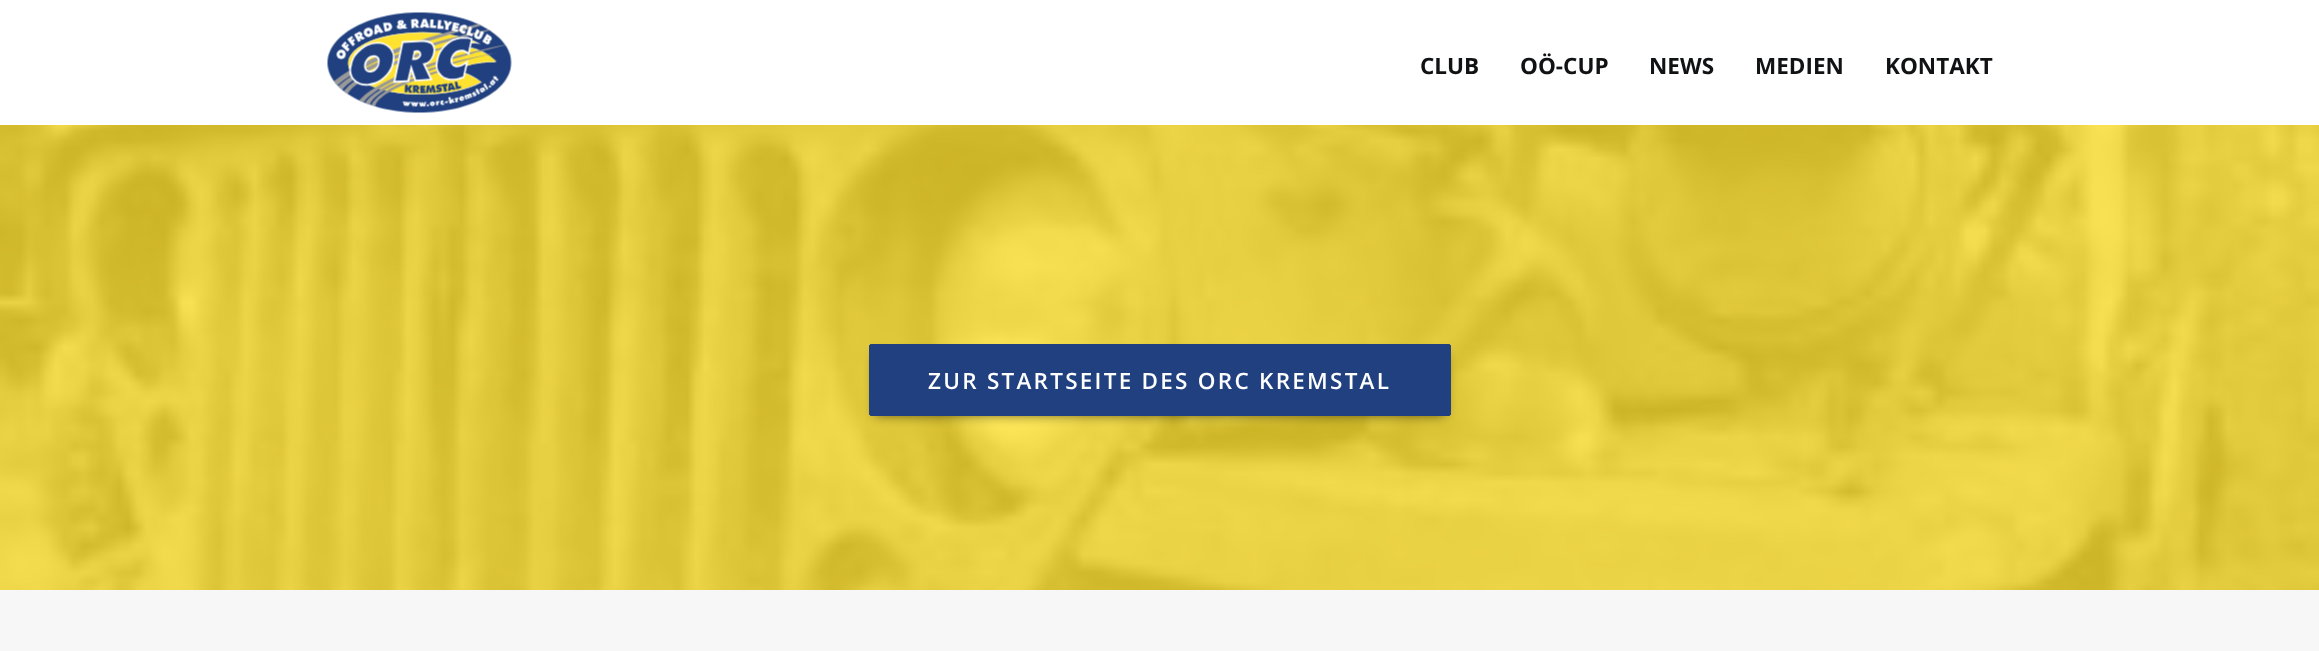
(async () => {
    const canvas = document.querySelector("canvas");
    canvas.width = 2319;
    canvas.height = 651;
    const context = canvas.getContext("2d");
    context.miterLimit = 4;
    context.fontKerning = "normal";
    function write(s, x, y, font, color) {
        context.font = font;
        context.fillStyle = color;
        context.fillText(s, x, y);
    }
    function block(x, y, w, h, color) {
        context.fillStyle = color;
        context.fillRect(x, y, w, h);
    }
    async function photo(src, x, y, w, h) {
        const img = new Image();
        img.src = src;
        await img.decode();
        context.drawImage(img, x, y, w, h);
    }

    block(0, 0, 2319, 651, "rgb(255, 255, 255)");
    await photo("media/1.png", 327, 12, 185, 101);
    write("CLUB", 1420, 74, "bold 22.5px Open Sans", "rgb(16, 18, 19)");
    write("OÖ-CUP", 1520, 74, "bold 22.5px Open Sans", "rgb(16, 18, 19)");
    write("NEWS", 1649, 74, "bold 22.5px Open Sans", "rgb(16, 18, 19)");
    write("MEDIEN", 1755, 74, "bold 22.5px Open Sans", "rgb(16, 18, 19)");
    write("KONTAKT", 1885, 74, "bold 22.5px Open Sans", "rgb(16, 18, 19)");
    await photo("media/2.png", 0, 125, 2319, 465);
    context.fillStyle = "rgba(0, 0, 0, 0.6)";
    context.filter = "blur(6px)";
    context.beginPath();
    context.rect(875, 355, 570, 60);
    context.fill();
    context.filter = "none";
    context.fillStyle = "rgb(32, 64, 128)";
    context.beginPath();
    context.roundRect(869.5, 344.5, 581, 71, 2);
    context.fill();
    context.strokeStyle = "rgb(32, 64, 128)";
    context.stroke();
    context.beginPath();
    context.roundRect(869.5, 344.5, 581, 71, 2);
    context.stroke();
    context.letterSpacing = "2.25px";
    write("ZUR STARTSEITE DES ORC KREMSTAL", 928, 389, "600 22.5px Open Sans", "rgb(255, 255, 255)");
    block(0, 590, 2319, 61, "rgb(247, 247, 247)");
})();
